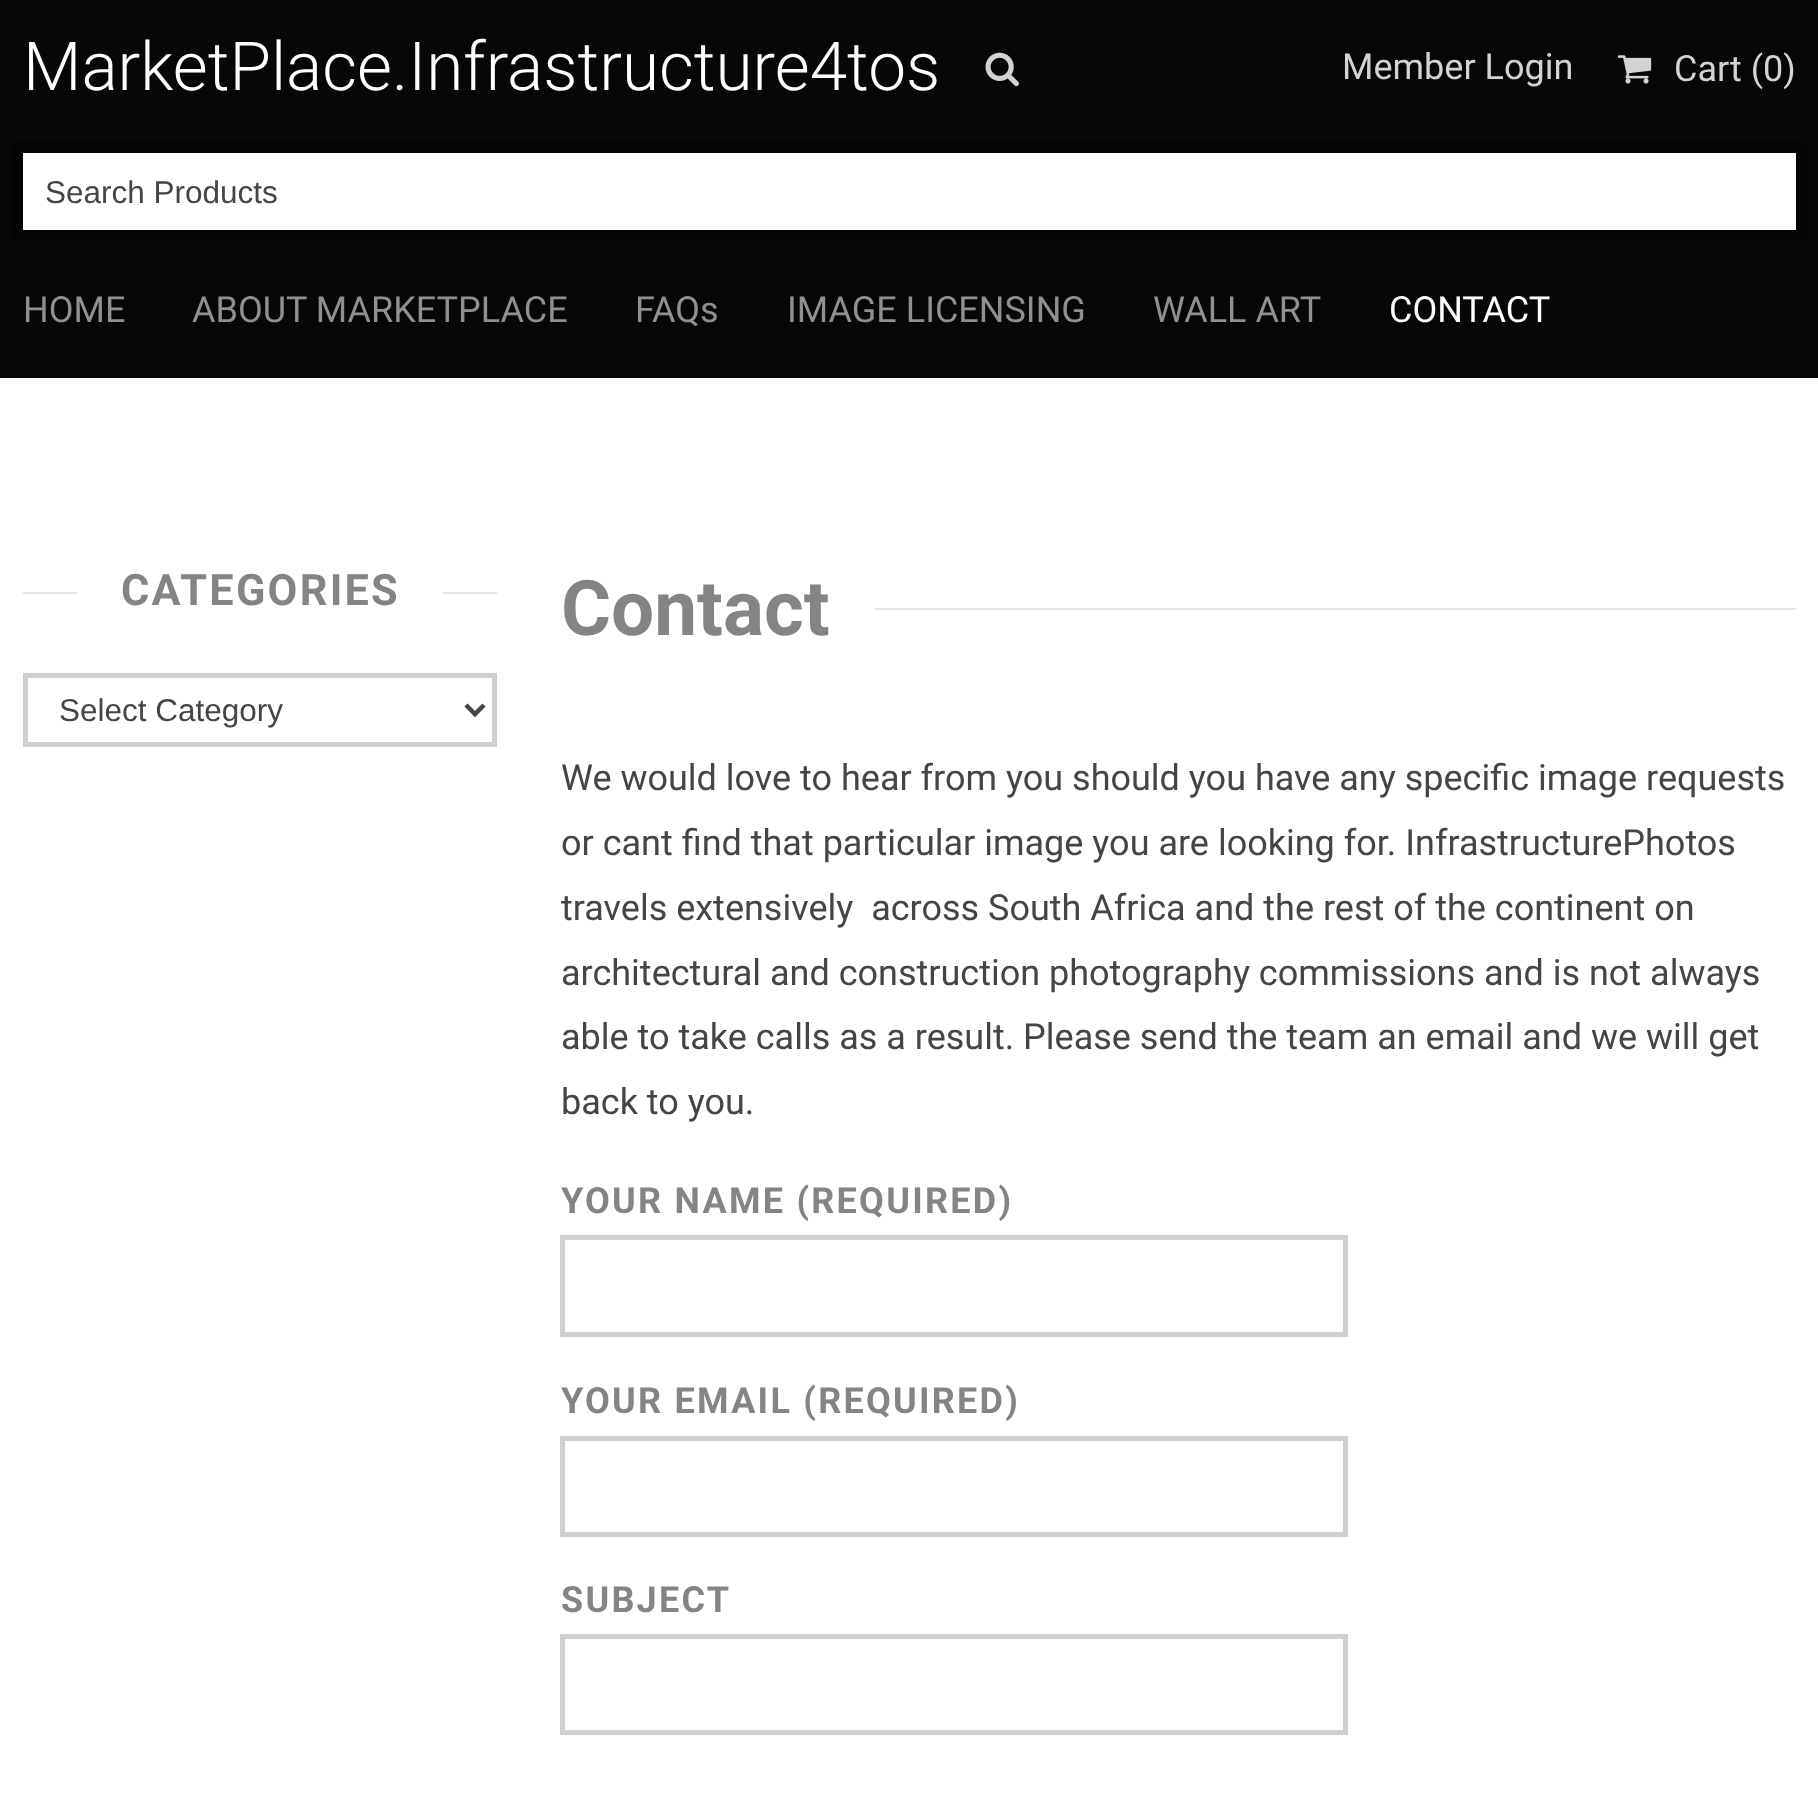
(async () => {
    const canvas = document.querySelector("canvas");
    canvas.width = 1818;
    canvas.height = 1798;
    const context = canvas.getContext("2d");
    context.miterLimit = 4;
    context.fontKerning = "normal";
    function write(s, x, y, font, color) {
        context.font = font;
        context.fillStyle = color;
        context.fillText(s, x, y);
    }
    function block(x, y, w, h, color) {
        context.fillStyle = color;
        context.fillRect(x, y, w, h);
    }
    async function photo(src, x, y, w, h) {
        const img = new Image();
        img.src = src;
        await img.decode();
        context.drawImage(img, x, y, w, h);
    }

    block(0, 0, 1818, 1798, "rgb(255, 255, 255)");
    block(0, 0, 1818, 378, "rgb(7, 7, 8)");
    write("MarketPlace.Infrastructure4tos", 23, 90, "300 67.5px Roboto", "rgb(255, 255, 255)");
    await photo("media/1.png", 985, 52, 34, 35);
    write("Member Login", 1342, 79, "36px Roboto", "rgb(211, 211, 211)");
    await photo("media/2.png", 1617, 55, 35, 29);
    write("Cart (0)", 1674, 81, "36px Roboto", "rgb(211, 211, 211)");
    context.strokeStyle = "rgb(4, 4, 4)";
    context.lineWidth = 11;
    context.strokeRect(16.5, 147.5, 1785, 88);
    block(23, 153, 1773, 77, "rgb(255, 255, 255)");
    write("Search Products", 45, 203, "31.5px Liberation Sans", "rgb(69, 69, 69)");
    write("HOME", 23, 322, "36px Roboto", "rgb(144, 144, 144)");
    write("ABOUT MARKETPLACE", 192, 322, "36px Roboto", "rgb(144, 144, 144)");
    write("FAQs", 635, 322, "36px Roboto", "rgb(144, 144, 144)");
    write("IMAGE LICENSING", 787, 322, "36px Roboto", "rgb(144, 144, 144)");
    write("WALL ART", 1153, 322, "36px Roboto", "rgb(144, 144, 144)");
    write("CONTACT", 1389, 322, "36px Roboto", "rgb(255, 255, 255)");
    block(23, 592, 474, 2, "rgb(229, 229, 229)");
    block(77, 592, 366, 2, "rgb(255, 255, 255)");
    context.letterSpacing = "2.25px";
    write("CATEGORIES", 121, 605, "bold 43.25px Roboto", "rgb(132, 132, 132)");
    context.strokeStyle = "rgb(207, 207, 207)";
    context.lineWidth = 5;
    context.strokeRect(25.5, 675.5, 469, 69);
    context.beginPath();
    context.moveTo(466, 705);
    context.lineTo(475, 714);
    context.lineTo(484, 705);
    context.strokeStyle = "rgb(69, 69, 69)";
    context.lineWidth = 4.5;
    context.stroke();
    context.letterSpacing = "0px";
    write("Select Category", 59, 721, "31.5px Liberation Sans", "rgb(69, 69, 69)");
    write("Contact", 561, 635, "bold 76.5px Roboto", "rgb(132, 132, 132)");
    block(875, 608, 921, 2, "rgb(229, 229, 229)");
    write("We would love to hear from you should you have any specific image requests", 561, 790, "36px Roboto", "rgb(69, 69, 69)");
    write("or cant find that particular image you are looking for. InfrastructurePhotos", 561, 855, "36px Roboto", "rgb(69, 69, 69)");
    write("travels extensively  across South Africa and the rest of the continent on", 561, 920, "36px Roboto", "rgb(69, 69, 69)");
    write("architectural and construction photography commissions and is not always", 561, 985, "36px Roboto", "rgb(69, 69, 69)");
    write("able to take calls as a result. Please send the team an email and we will get", 561, 1049, "36px Roboto", "rgb(69, 69, 69)");
    write("back to you.", 561, 1114, "36px Roboto", "rgb(69, 69, 69)");
    context.letterSpacing = "2.25px";
    write("YOUR NAME (REQUIRED)", 561, 1213, "bold 36px Roboto", "rgb(132, 132, 132)");
    context.strokeStyle = "rgb(207, 207, 207)";
    context.lineWidth = 5;
    context.strokeRect(562.5, 1237.5, 783, 97);
    write("YOUR EMAIL (REQUIRED)", 561, 1413, "bold 36px Roboto", "rgb(132, 132, 132)");
    context.strokeRect(562.5, 1438.5, 783, 96);
    write("SUBJECT", 561, 1612, "bold 36px Roboto", "rgb(132, 132, 132)");
    context.strokeRect(562.5, 1636.5, 783, 96);
})();
